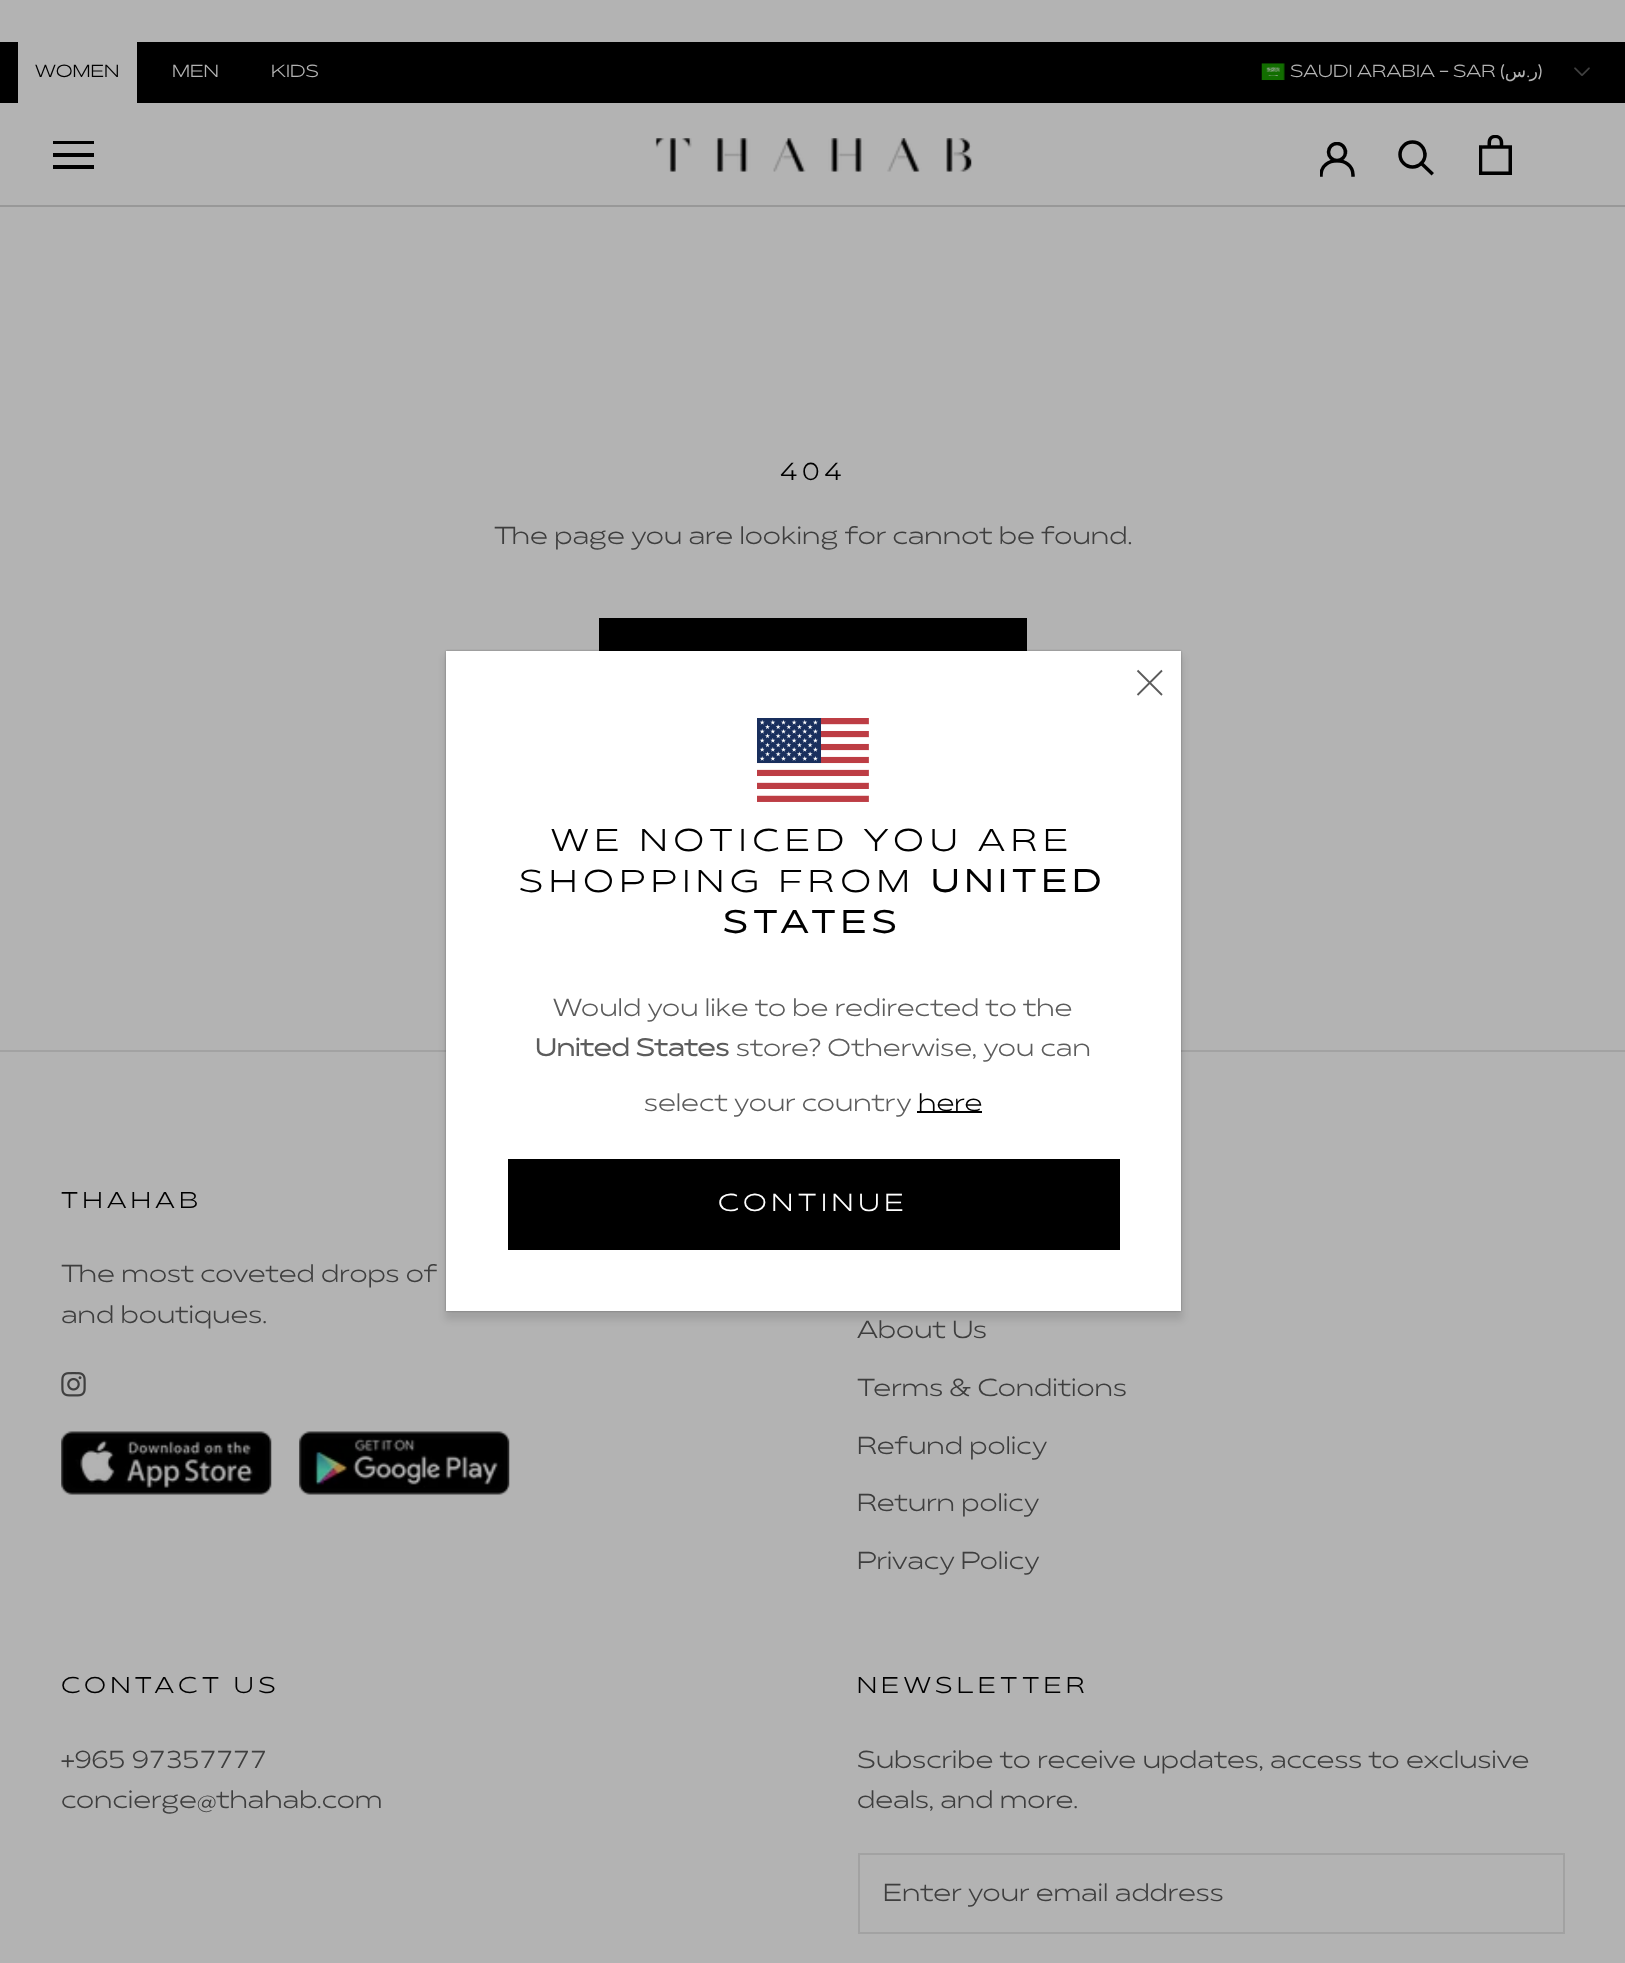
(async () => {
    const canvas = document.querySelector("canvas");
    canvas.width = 1625;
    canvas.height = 1963;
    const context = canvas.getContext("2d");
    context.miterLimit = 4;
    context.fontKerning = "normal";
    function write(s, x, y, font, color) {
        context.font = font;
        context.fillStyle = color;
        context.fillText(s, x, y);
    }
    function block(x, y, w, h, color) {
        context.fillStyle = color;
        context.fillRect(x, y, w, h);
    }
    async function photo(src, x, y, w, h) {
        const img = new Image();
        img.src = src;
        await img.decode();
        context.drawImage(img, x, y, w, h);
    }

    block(0, 0, 1625, 1963, "rgb(179, 179, 179)");
    block(0, 42, 1625, 61, "rgb(0, 0, 0)");
    block(18, 42, 119, 61, "rgb(179, 179, 179)");
    write("WOMEN", 35, 77, "17.5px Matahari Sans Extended", "rgb(0, 0, 0)");
    block(0, 205, 1625, 2, "rgb(152, 152, 152)");
    context.save();
    context.beginPath();
    context.rect(53, 140, 42, 30);
    context.clip();
    context.fillStyle = "rgb(0, 0, 0)";
    context.beginPath();
    context.moveTo(52, 169);
    context.lineTo(52, 165);
    context.lineTo(94, 165);
    context.lineTo(94, 169);
    context.closePath();
    context.moveTo(52, 153);
    context.lineTo(94, 153);
    context.lineTo(94, 157);
    context.lineTo(52, 157);
    context.closePath();
    context.moveTo(52, 141);
    context.lineTo(94, 141);
    context.lineTo(94, 144);
    context.lineTo(52, 144);
    context.closePath();
    context.fill();
    context.restore();
    await photo("media/1.png", 655, 138, 317, 34);
    context.save();
    context.beginPath();
    context.rect(1320, 142, 35, 35);
    context.clip();
    context.beginPath();
    context.moveTo(1321, 175);
    context.bezierCurveTo(1321, 156, 1353, 156, 1353, 175);
    context.strokeStyle = "rgb(0, 0, 0)";
    context.lineWidth = 3.5;
    context.lineCap = "square";
    context.stroke();
    context.beginPath();
    context.arc(1337, 152, 8.5, 0, Math.PI * 2);
    context.stroke();
    context.restore();
    context.beginPath();
    context.moveTo(1431.5, 173);
    context.lineTo(1421.5, 163.5);
    context.strokeStyle = "rgb(0, 0, 0)";
    context.lineWidth = 3.5;
    context.lineCap = "square";
    context.stroke();
    context.beginPath();
    context.arc(1412.5, 154.5, 12.5, 0, Math.PI * 2);
    context.stroke();
    await photo("media/2.png", 1479, 135, 33, 40);
    write("MEN", 172, 77, "17.5px Matahari Sans Extended", "rgb(179, 179, 179)");
    write("KIDS", 271, 77, "17.5px Matahari Sans Extended", "rgb(179, 179, 179)");
    await photo("media/3.png", 1261, 63, 24, 18);
    write("SAUDI ARABIA - SAR (", 1290, 77, "17.5px Matahari Sans Extended", "rgb(179, 179, 179)");
    context.direction = "rtl";
    write("س", 1526, 77, "17.5px DejaVu Sans", "rgb(179, 179, 179)");
    write(".", 1530, 77, "17.5px Matahari Sans Extended", "rgb(179, 179, 179)");
    write("ر", 1538, 77, "17.5px DejaVu Sans", "rgb(179, 179, 179)");
    context.direction = "ltr";
    write(")", 1538, 77, "17.5px Matahari Sans Extended", "rgb(179, 179, 179)");
    await photo("media/4.png", 1574, 67, 16, 9);
    context.lineWidth = 2;
    context.strokeRect(600, 619, 426, 80);
    block(601, 620, 424, 31, "rgb(0, 0, 0)");
    block(0, 1050, 1625, 2, "rgb(162, 162, 162)");
    context.fillStyle = "rgba(0, 0, 0, 0.1)";
    context.filter = "blur(3.5px)";
    context.beginPath();
    context.rect(445, 656, 738, 664);
    context.fill();
    context.filter = "none";
    context.fillStyle = "rgba(0, 0, 0, 0.3)";
    context.filter = "blur(1px)";
    context.beginPath();
    context.rect(446, 651, 735, 660);
    context.fill();
    context.filter = "none";
    block(446, 651, 735, 660, "rgb(255, 255, 255)");
    context.beginPath();
    context.moveTo(1162, 670.5);
    context.lineTo(1137.5, 695);
    context.moveTo(1162, 695);
    context.lineTo(1137.5, 670.5);
    context.strokeStyle = "rgb(92, 92, 92)";
    context.lineWidth = 1.8;
    context.lineCap = "butt";
    context.stroke();
    await photo("media/5.png", 757, 718, 112, 84);
    context.letterSpacing = "6.25px";
    write("WE NOTICED YOU ARE", 551, 851, "31.5px Matahari Sans Extended", "rgb(0, 0, 0)");
    write("SHOPPING FROM", 519, 892, "31.5px Matahari Sans Extended", "rgb(0, 0, 0)");
    write("UNITED", 931, 892, "bold 31.5px Matahari Sans Extended", "rgb(0, 0, 0)");
    write("STATES", 723, 933, "bold 31.5px Matahari Sans Extended", "rgb(0, 0, 0)");
    context.letterSpacing = "0px";
    write("Would you like to be redirected to the", 553, 1016, "24.5px Matahari Sans Extended", "rgb(92, 92, 92)");
    write("United States", 535, 1056, "bold 24.5px Matahari Sans Extended", "rgb(92, 92, 92)");
    write("store? Otherwise, you can", 736, 1056, "24.5px Matahari Sans Extended", "rgb(92, 92, 92)");
    write("select your country", 644, 1111, "24.5px Matahari Sans Extended", "rgb(92, 92, 92)");
    block(917, 1111, 65, 2, "rgb(0, 0, 0)");
    write("here", 918, 1111, "24.5px Matahari Sans Extended", "rgb(0, 0, 0)");
    block(508, 1159, 612, 91, "rgb(0, 0, 0)");
    context.letterSpacing = "5px";
    write("CONTINUE", 718, 1211, "24.5px Matahari Sans Extended", "rgb(255, 255, 255)");
    write("404", 780, 480, "24.5px Matahari Sans Extended", "rgb(0, 0, 0)");
    context.letterSpacing = "0px";
    write("The page you are looking for cannot be found.", 494, 544, "24.5px Matahari Sans Extended", "rgb(62, 62, 62)");
    context.letterSpacing = "4.5px";
    write("THAHAB", 61, 1208, "22.75px Matahari Sans Extended", "rgb(0, 0, 0)");
    context.letterSpacing = "0px";
    write("The most coveted drops of", 61, 1282, "24.5px Matahari Sans Extended", "rgb(62, 62, 62)");
    write("and boutiques.", 61, 1323, "24.5px Matahari Sans Extended", "rgb(62, 62, 62)");
    await photo("media/6.png", 61, 1372, 25, 25);
    await photo("media/7.png", 61, 1431, 211, 64);
    await photo("media/8.png", 299, 1431, 211, 64);
    write("About Us", 857, 1338, "24.5px Matahari Sans Extended", "rgb(62, 62, 62)");
    write("Terms & Conditions", 857, 1396, "24.5px Matahari Sans Extended", "rgb(62, 62, 62)");
    write("Refund policy", 857, 1454, "24.5px Matahari Sans Extended", "rgb(62, 62, 62)");
    write("Return policy", 857, 1511, "24.5px Matahari Sans Extended", "rgb(62, 62, 62)");
    write("Privacy Policy", 857, 1569, "24.5px Matahari Sans Extended", "rgb(62, 62, 62)");
    context.letterSpacing = "4.5px";
    write("CONTACT US", 61, 1693, "22.75px Matahari Sans Extended", "rgb(0, 0, 0)");
    context.letterSpacing = "0px";
    write("+965 97357777", 61, 1768, "24.5px Matahari Sans Extended", "rgb(62, 62, 62)");
    write("concierge@thahab.com", 61, 1808, "24.5px Matahari Sans Extended", "rgb(62, 62, 62)");
    context.letterSpacing = "4.5px";
    write("NEWSLETTER", 857, 1693, "22.75px Matahari Sans Extended", "rgb(0, 0, 0)");
    context.letterSpacing = "0px";
    write("Subscribe to receive updates, access to exclusive", 857, 1768, "24.5px Matahari Sans Extended", "rgb(62, 62, 62)");
    write("deals, and more.", 857, 1808, "24.5px Matahari Sans Extended", "rgb(62, 62, 62)");
    context.strokeStyle = "rgb(162, 162, 162)";
    context.lineWidth = 2;
    context.strokeRect(859, 1854, 705, 79);
    write("Enter your email address", 883, 1901, "24.5px Matahari Sans Extended", "rgb(62, 62, 62)");
})();
